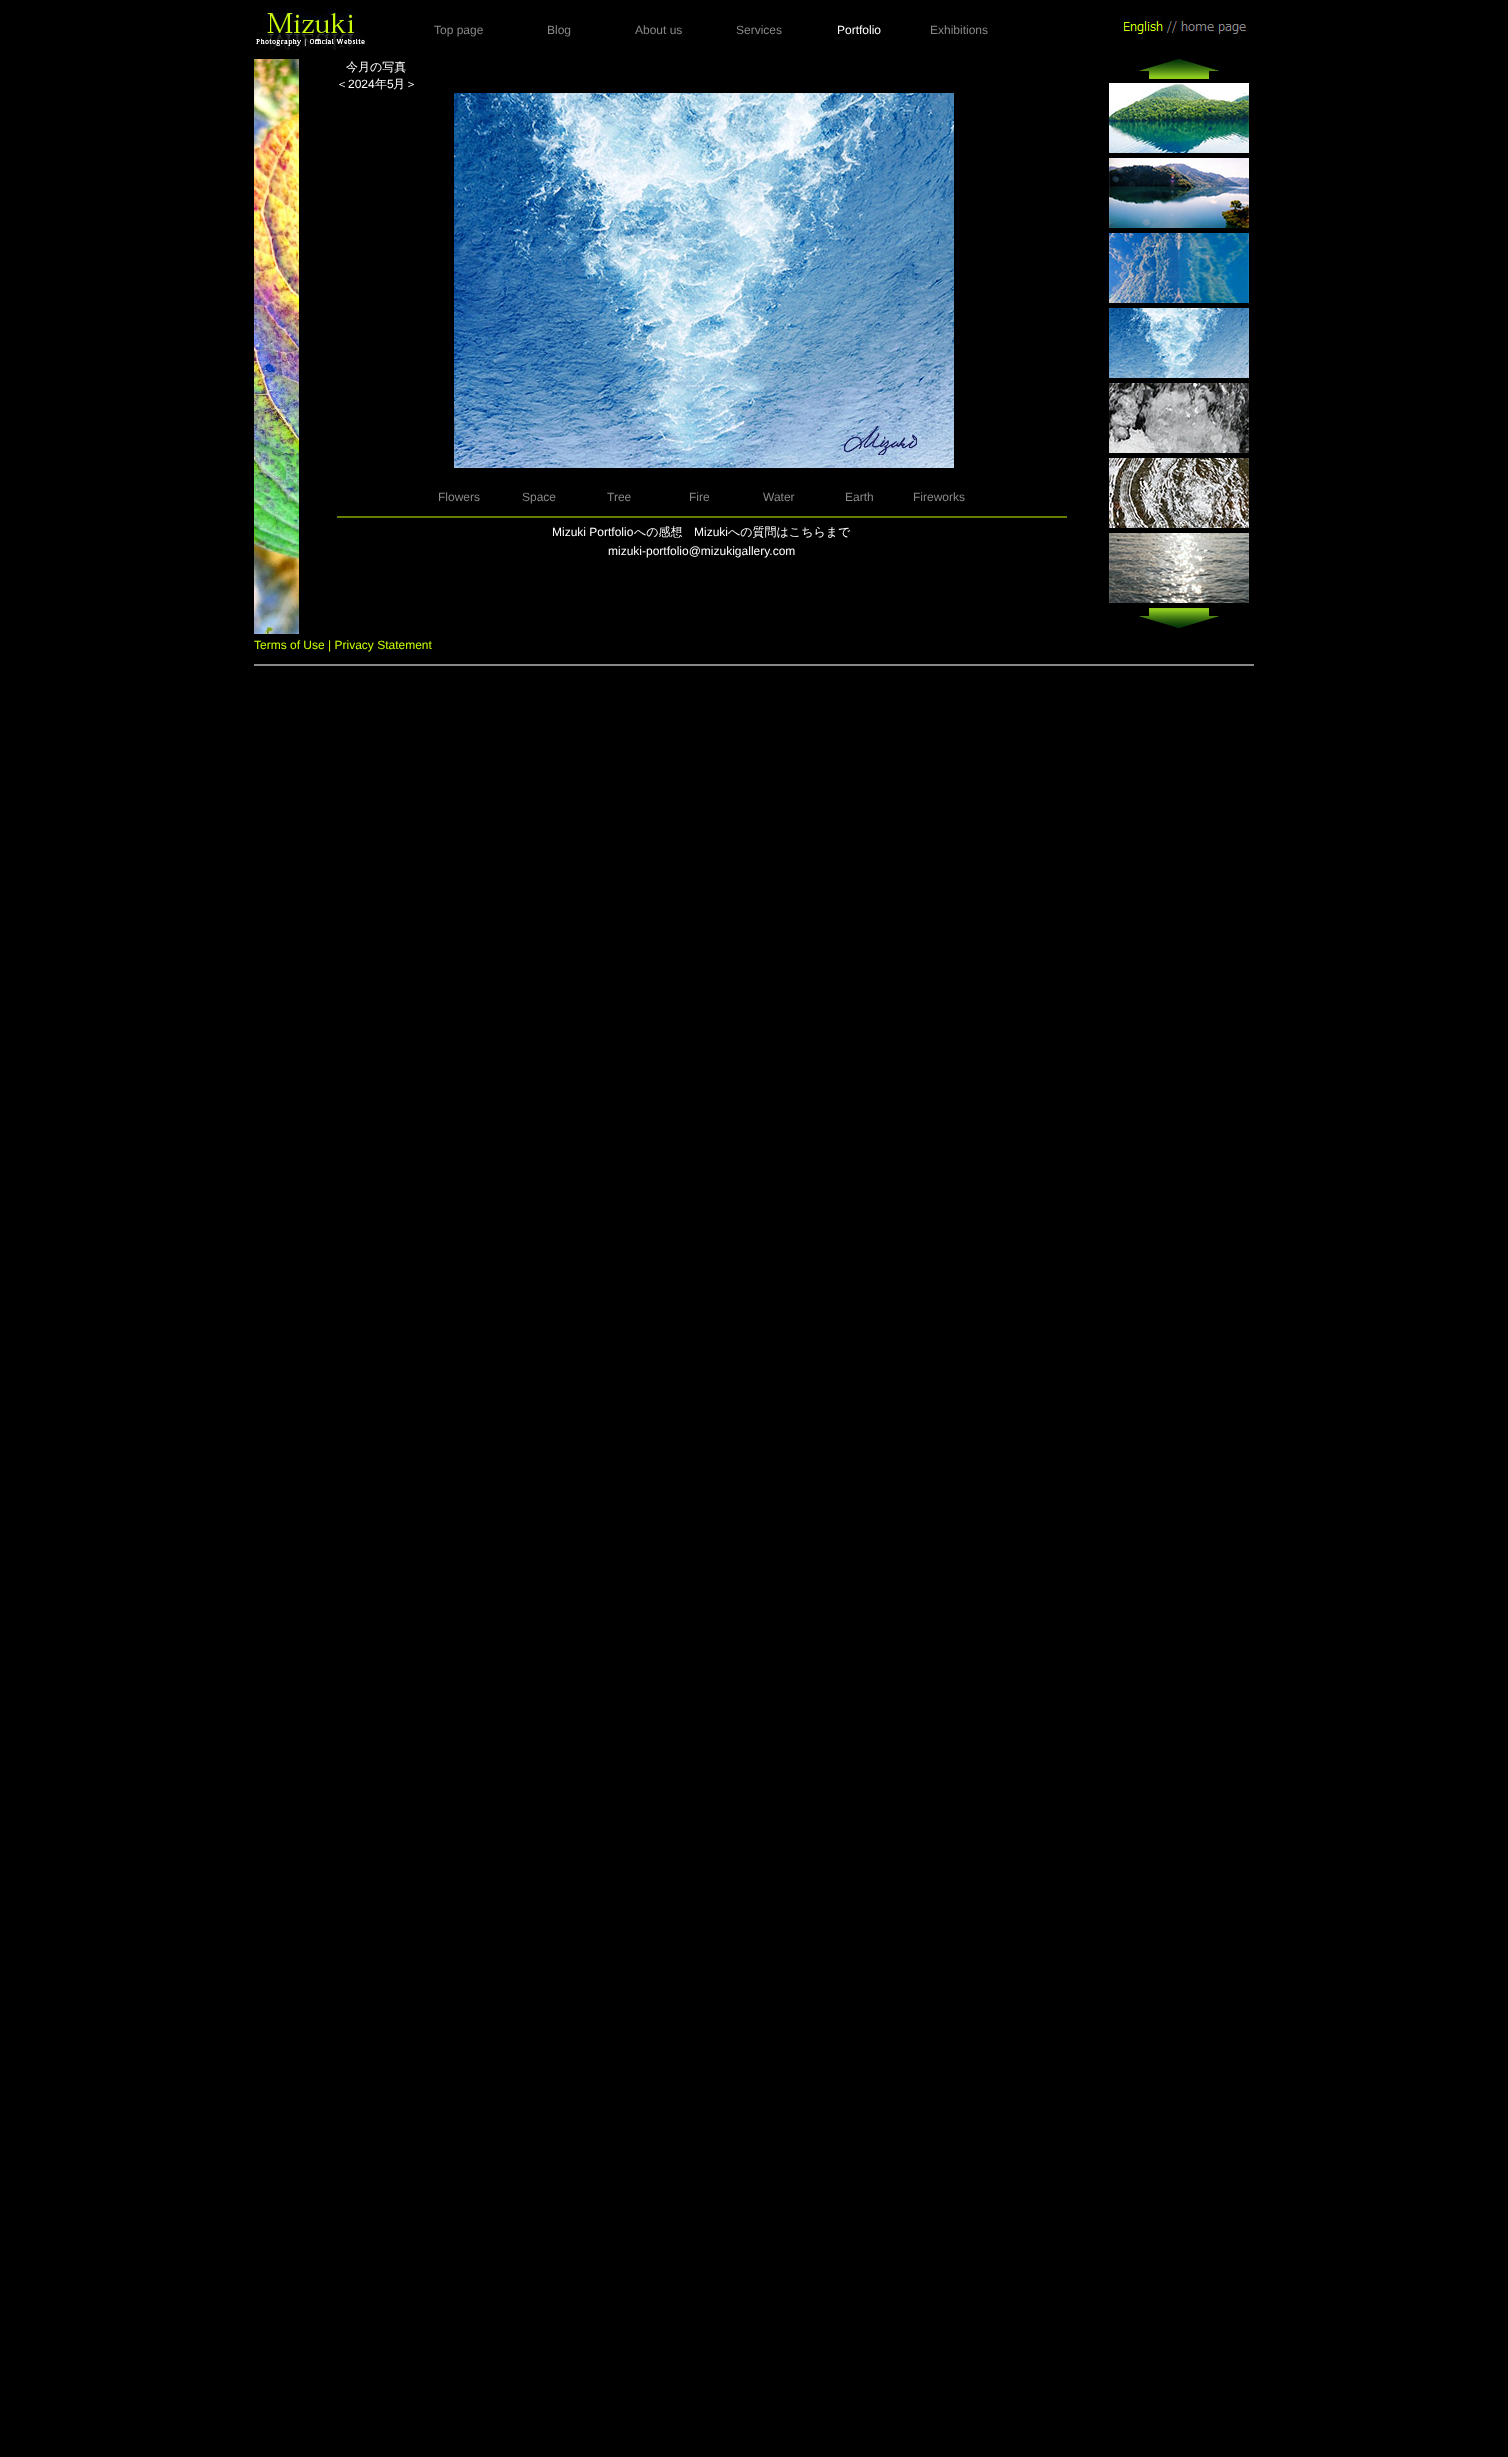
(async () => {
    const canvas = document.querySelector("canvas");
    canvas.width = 1508;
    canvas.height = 2457;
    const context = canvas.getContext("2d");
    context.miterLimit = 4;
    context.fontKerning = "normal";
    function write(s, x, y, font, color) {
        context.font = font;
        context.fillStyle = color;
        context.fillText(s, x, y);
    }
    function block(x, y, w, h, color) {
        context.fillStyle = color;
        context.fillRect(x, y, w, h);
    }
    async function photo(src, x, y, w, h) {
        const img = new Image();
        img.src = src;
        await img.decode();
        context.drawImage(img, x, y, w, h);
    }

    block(0, 0, 1508, 2457, "rgb(0, 0, 0)");
    await photo("media/1.png", 255, 7, 110, 43);
    write("Top page", 434, 34, "12px Liberation Sans", "rgb(136, 136, 136)");
    write("Blog", 547, 34, "12px Liberation Sans", "rgb(136, 136, 136)");
    write("About us", 635, 34, "12px Liberation Sans", "rgb(136, 136, 136)");
    write("Services", 736, 34, "12px Liberation Sans", "rgb(136, 136, 136)");
    write("Portfolio", 837, 34, "12px Liberation Sans", "rgb(255, 255, 255)");
    write("Exhibitions", 930, 34, "12px Liberation Sans", "rgb(136, 136, 136)");
    await photo("media/2.png", 1122, 16, 128, 24);
    await photo("media/3.png", 254, 59, 45, 575);
    write("今月の写真", 346, 71, "500 12px WenQuanYi Zen Hei", "rgb(255, 255, 255)");
    write("＜", 336, 88, "500 12px WenQuanYi Zen Hei", "rgb(255, 255, 255)");
    write("2024", 348, 88, "12px Liberation Sans", "rgb(255, 255, 255)");
    write("年", 375, 88, "500 12px WenQuanYi Zen Hei", "rgb(255, 255, 255)");
    write("5", 387, 88, "12px Liberation Sans", "rgb(255, 255, 255)");
    write("月＞", 393, 88, "500 12px WenQuanYi Zen Hei", "rgb(255, 255, 255)");
    await photo("media/4.png", 454, 93, 500, 375);
    await photo("media/5.png", 1139, 59, 80, 20);
    await photo("media/6.png", 1109, 83, 140, 70);
    await photo("media/7.png", 1109, 158, 140, 70);
    await photo("media/8.png", 1109, 233, 140, 70);
    await photo("media/9.png", 1109, 308, 140, 70);
    await photo("media/10.png", 1109, 383, 140, 70);
    await photo("media/11.png", 1109, 458, 140, 70);
    await photo("media/12.png", 1109, 533, 140, 70);
    await photo("media/13.png", 1139, 608, 80, 20);
    write("Flowers", 438, 501, "12px Liberation Sans", "rgb(136, 136, 136)");
    write("Space", 522, 501, "12px Liberation Sans", "rgb(136, 136, 136)");
    write("Tree", 607, 501, "12px Liberation Sans", "rgb(136, 136, 136)");
    write("Fire", 689, 501, "12px Liberation Sans", "rgb(136, 136, 136)");
    write("Water", 763, 501, "12px Liberation Sans", "rgb(136, 136, 136)");
    write("Earth", 845, 501, "12px Liberation Sans", "rgb(136, 136, 136)");
    write("Fireworks", 913, 501, "12px Liberation Sans", "rgb(136, 136, 136)");
    block(337, 516, 730, 2, "rgb(100, 126, 0)");
    write("Mizuki Portfolio", 552, 536, "12px Liberation Sans", "rgb(255, 255, 255)");
    write("への感想", 634, 536, "500 12px WenQuanYi Zen Hei", "rgb(255, 255, 255)");
    write("Mizuki", 694, 536, "12px Liberation Sans", "rgb(255, 255, 255)");
    write("への質問はこちらまで", 728, 536, "500 12px WenQuanYi Zen Hei", "rgb(255, 255, 255)");
    write("mizuki-portfolio@mizukigallery.com", 608, 555, "12px Liberation Sans", "rgb(255, 255, 255)");
    write("Terms of Use | Privacy Statement", 254, 649, "12px Liberation Sans", "rgb(200, 255, 0)");
    block(254, 664, 1000, 2, "rgb(136, 136, 136)");
})();
